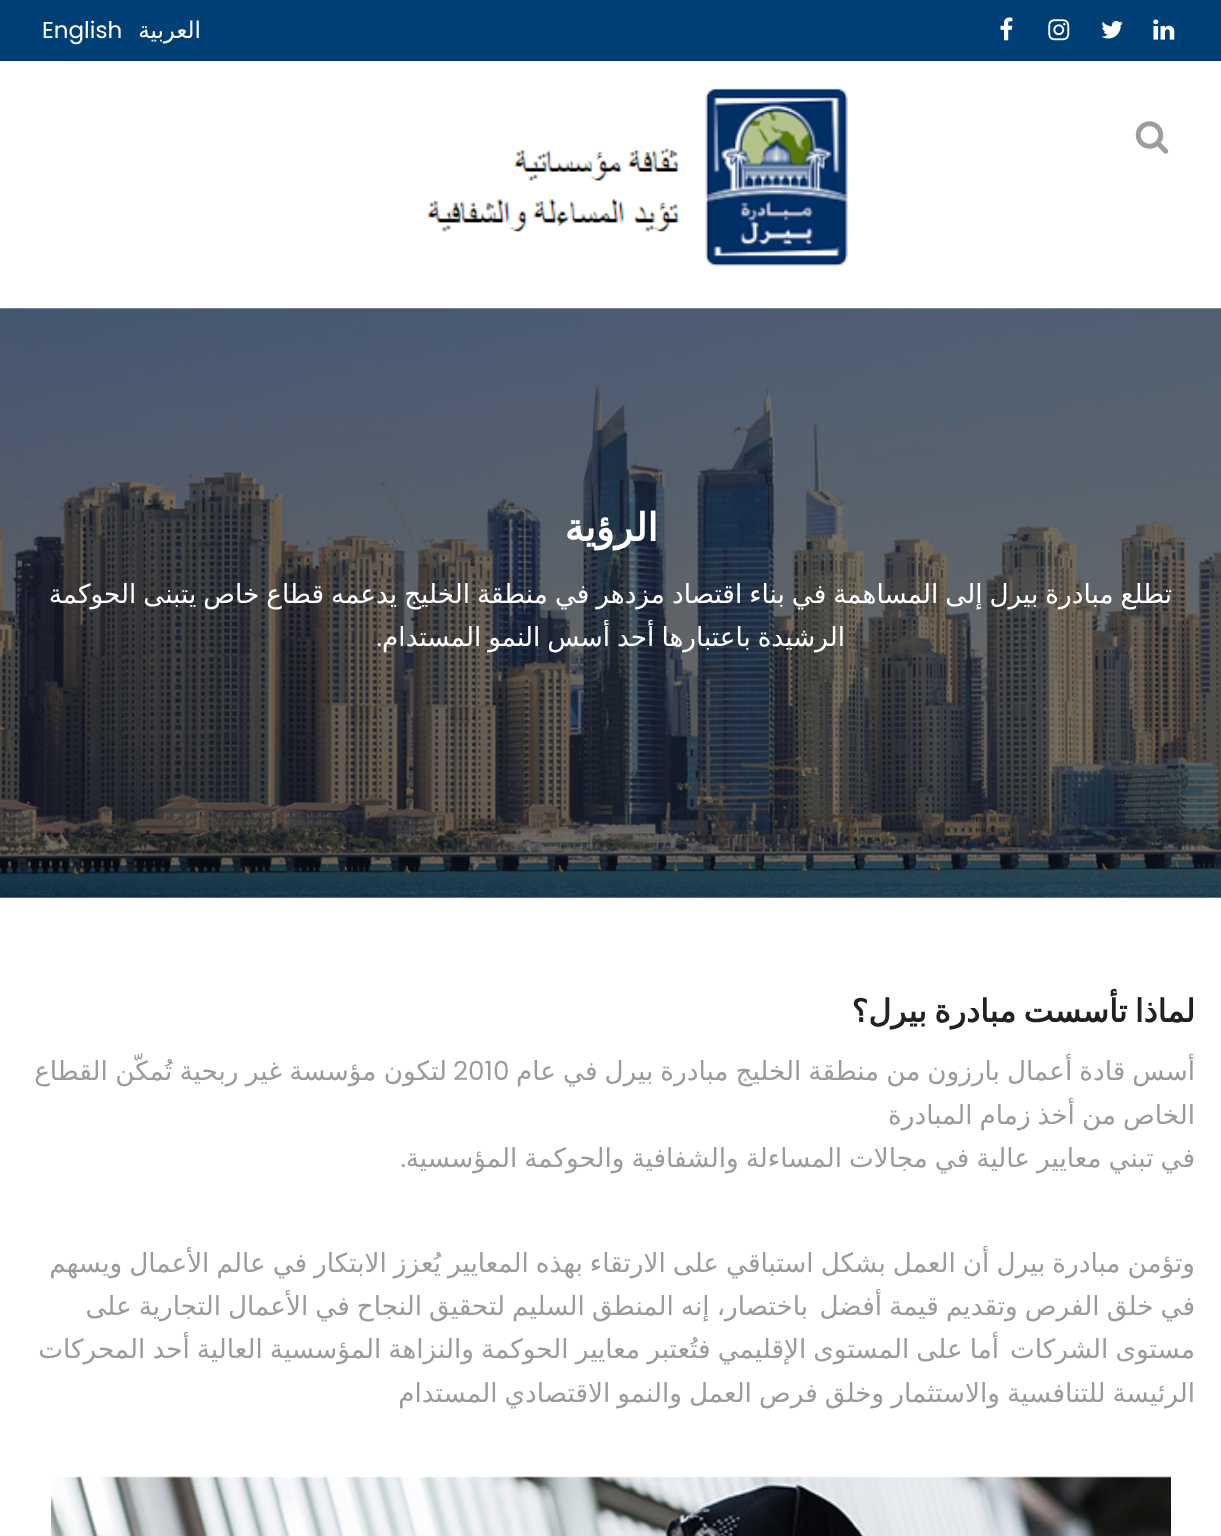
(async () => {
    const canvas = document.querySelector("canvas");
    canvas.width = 1221;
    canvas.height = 1536;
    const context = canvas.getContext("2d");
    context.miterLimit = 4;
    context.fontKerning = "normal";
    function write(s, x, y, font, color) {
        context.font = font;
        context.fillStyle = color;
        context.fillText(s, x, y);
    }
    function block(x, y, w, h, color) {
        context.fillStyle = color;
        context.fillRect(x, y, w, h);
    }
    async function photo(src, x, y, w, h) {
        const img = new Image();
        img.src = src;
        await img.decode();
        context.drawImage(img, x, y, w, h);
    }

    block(0, 0, 1221, 1536, "rgb(255, 255, 255)");
    block(0, 0, 1221, 60, "rgb(0, 64, 119)");
    block(0, 60, 1221, 1, "rgb(0, 58, 107)");
    await photo("media/1.png", 1153, 19, 22, 21);
    await photo("media/2.png", 1101, 21, 22, 18);
    await photo("media/3.png", 1048, 19, 22, 22);
    await photo("media/4.png", 1000, 17, 13, 24);
    context.direction = "rtl";
    write("العربية", 201, 38, "23px DejaVu Sans", "rgb(255, 255, 255)");
    context.direction = "ltr";
    write("English", 42, 38, "23px Poppins", "rgb(255, 255, 255)");
    await photo("media/5.png", 1135, 121, 34, 33);
    await photo("media/6.png", 426, 88, 422, 179);
    await photo("media/7.png", 0, 308, 1221, 590);
    context.direction = "rtl";
    write("الرؤية", 658, 541, "bold 38.5px DejaVu Sans", "rgb(255, 255, 255)");
    context.wordSpacing = "-1.3px";
    write("تطلع مبادرة بيرل إلى المساهمة في بناء اقتصاد مزدهر في منطقة الخليج يدعمه قطاع خاص يتبنى الحوكمة", 1172, 603, "26.25px DejaVu Sans", "rgb(255, 255, 255)");
    write("الرشيدة باعتبارها أحد أسس النمو المستدام", 845, 646, "26.25px DejaVu Sans", "rgb(255, 255, 255)");
    context.wordSpacing = "0px";
    write(".", 382, 646, "26.25px Poppins", "rgb(255, 255, 255)");
    context.wordSpacing = "-2.5px";
    write("لماذا تأسست مبادرة بيرل؟", 1195, 1022, "bold 31.5px DejaVu Sans", "rgb(34, 34, 34)");
    context.wordSpacing = "-1.3px";
    write("أسس قادة أعمال بارزون من منطقة الخليج مبادرة بيرل في عام", 1195, 1080, "26.25px DejaVu Sans", "rgb(155, 155, 155)");
    context.wordSpacing = "0px";
    context.direction = "ltr";
    write("2010", 453, 1080, "26.25px Poppins", "rgb(155, 155, 155)");
    context.wordSpacing = "-1px";
    context.direction = "rtl";
    write("لتكون مؤسسة غير ربحية تُمكّن القطاع", 447, 1080, "26.25px DejaVu Sans", "rgb(155, 155, 155)");
    context.wordSpacing = "-1.3px";
    write("الخاص من أخذ زمام المبادرة", 1195, 1124, "26.25px DejaVu Sans", "rgb(155, 155, 155)");
    write("في تبني معايير عالية في مجالات المساءلة والشفافية والحوكمة المؤسسية", 1195, 1167, "26.25px DejaVu Sans", "rgb(155, 155, 155)");
    context.wordSpacing = "0px";
    write(".", 406, 1167, "26.25px Poppins", "rgb(155, 155, 155)");
    context.wordSpacing = "-1.3px";
    write("وتؤمن مبادرة بيرل أن العمل بشكل استباقي على الارتقاء بهذه المعايير يُعزز الابتكار في عالم الأعمال ويسهم", 1195, 1272, "26.25px DejaVu Sans", "rgb(155, 155, 155)");
    context.wordSpacing = "-1.25px";
    write("في خلق الفرص وتقديم قيمة أفضل", 1195, 1315, "26.25px DejaVu Sans", "rgb(155, 155, 155)");
    write("باختصار، إنه المنطق السليم لتحقيق النجاح في الأعمال التجارية على", 808, 1315, "26.25px DejaVu Sans", "rgb(155, 155, 155)");
    write("مستوى الشركات", 1195, 1358, "26.25px DejaVu Sans", "rgb(155, 155, 155)");
    write("أما على المستوى الإقليمي فتُعتبر معايير الحوكمة والنزاهة المؤسسية العالية أحد المحركات", 999, 1358, "26.25px DejaVu Sans", "rgb(155, 155, 155)");
    context.wordSpacing = "-1.3px";
    write("الرئيسة للتنافسية والاستثمار وخلق فرص العمل والنمو الاقتصادي المستدام", 1195, 1402, "26.25px DejaVu Sans", "rgb(155, 155, 155)");
    await photo("media/8.png", 51, 1476, 1120, 60);
})();
